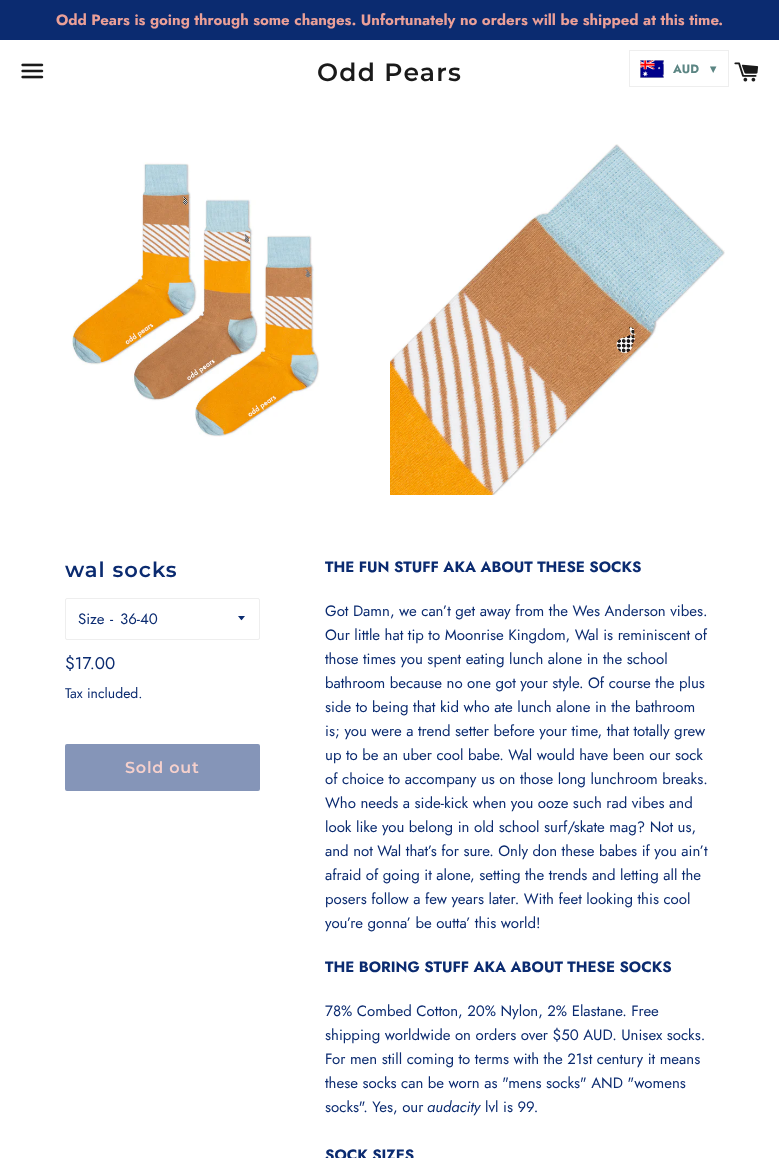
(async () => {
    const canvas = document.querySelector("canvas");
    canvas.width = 779;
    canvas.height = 1158;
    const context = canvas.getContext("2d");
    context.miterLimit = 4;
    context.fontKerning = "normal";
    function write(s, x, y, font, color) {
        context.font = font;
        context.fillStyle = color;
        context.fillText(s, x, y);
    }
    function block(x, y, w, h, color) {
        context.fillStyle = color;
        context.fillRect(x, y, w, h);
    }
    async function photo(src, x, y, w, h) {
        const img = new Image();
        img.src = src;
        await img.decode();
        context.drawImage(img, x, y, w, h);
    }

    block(0, 0, 779, 1158, "rgb(255, 255, 255)");
    block(0, 0, 779, 40, "rgb(11, 43, 112)");
    write("Odd Pears is going through some changes. Unfortunately no orders will be shipped at this time.", 56, 25, "bold 15px Jost", "rgb(235, 160, 152)");
    await photo("media/1.png", 21, 63, 23, 16);
    context.letterSpacing = "1.25px";
    write("Odd Pears", 317, 81, "600 25px Montserrat", "rgb(26, 26, 26)");
    await photo("media/2.png", 734, 62, 25, 20);
    await photo("media/3.png", 70, 162, 250, 275);
    await photo("media/4.png", 390, 144, 335, 351);
    context.letterSpacing = "1px";
    write("wal socks", 65, 577, "600 21px Montserrat", "rgb(11, 43, 112)");
    context.beginPath();
    context.roundRect(65.5, 598.5, 194, 41, 1.5);
    context.strokeStyle = "rgb(238, 238, 238)";
    context.stroke();
    context.letterSpacing = "0px";
    write("Size", 78, 624, "15px Jost", "rgb(11, 43, 112)");
    write("-", 110, 624, "15px Jost", "rgb(11, 43, 112)");
    context.beginPath();
    context.moveTo(238, 616);
    context.bezierCurveTo(242.5, 621.5, 240.5, 621.5, 245, 616);
    context.closePath();
    context.fill();
    write("36-40", 120, 624, "15px Jost", "rgb(11, 43, 112)");
    write("$17.00", 65, 669, "17px Jost", "rgb(11, 43, 112)");
    write("Tax included.", 65, 698, "14px Jost", "rgb(11, 43, 112)");
    context.fillStyle = "rgb(133, 149, 184)";
    context.beginPath();
    context.roundRect(66, 745, 193, 45, 1);
    context.fill();
    context.strokeStyle = "rgb(133, 149, 184)";
    context.lineWidth = 2;
    context.stroke();
    context.letterSpacing = "0.75px";
    write("Sold out", 125, 773, "600 16px Montserrat", "rgb(245, 208, 204)");
    context.letterSpacing = "0px";
    write("THE FUN STUFF AKA ABOUT THESE SOCKS", 325, 572, "bold 15px Jost", "rgb(11, 43, 112)");
    write("Got Damn, we can’t get away from the Wes Anderson vibes.", 325, 616, "15px Jost", "rgb(11, 43, 112)");
    write("Our little hat tip to Moonrise Kingdom, Wal is reminiscent of", 325, 640, "15px Jost", "rgb(11, 43, 112)");
    write("those times you spent eating lunch alone in the school", 325, 664, "15px Jost", "rgb(11, 43, 112)");
    write("bathroom because no one got your style. Of course the plus", 325, 688, "15px Jost", "rgb(11, 43, 112)");
    write("side to being that kid who ate lunch alone in the bathroom", 325, 712, "15px Jost", "rgb(11, 43, 112)");
    write("is; you were a trend setter before your time, that totally grew", 325, 736, "15px Jost", "rgb(11, 43, 112)");
    write("up to be an uber cool babe. Wal would have been our sock", 325, 760, "15px Jost", "rgb(11, 43, 112)");
    write("of choice to accompany us on those long lunchroom breaks.", 325, 784, "15px Jost", "rgb(11, 43, 112)");
    write("Who needs a side-kick when you ooze such rad vibes and", 325, 808, "15px Jost", "rgb(11, 43, 112)");
    write("look like you belong in old school surf/skate mag? Not us,", 325, 832, "15px Jost", "rgb(11, 43, 112)");
    write("and not Wal that’s for sure. Only don these babes if you ain’t", 325, 856, "15px Jost", "rgb(11, 43, 112)");
    write("afraid of going it alone, setting the trends and letting all the", 325, 880, "15px Jost", "rgb(11, 43, 112)");
    write("posers follow a few years later. With feet looking this cool", 325, 904, "15px Jost", "rgb(11, 43, 112)");
    write("you’re gonna’ be outta’ this world!", 325, 928, "15px Jost", "rgb(11, 43, 112)");
    write("THE BORING STUFF AKA ABOUT THESE SOCKS", 325, 972, "bold 15px Jost", "rgb(11, 43, 112)");
    write("78% Combed Cotton, 20% Nylon, 2% Elastane. Free", 325, 1016, "15px Jost", "rgb(11, 43, 112)");
    write("shipping worldwide on orders over $50 AUD. Unisex socks.", 325, 1040, "15px Jost", "rgb(11, 43, 112)");
    write("For men still coming to terms with the 21st century it means", 325, 1064, "15px Jost", "rgb(11, 43, 112)");
    write("these socks can be worn as \"mens socks\" AND \"womens", 325, 1088, "15px Jost", "rgb(11, 43, 112)");
    write("socks\". Yes, our", 325, 1112, "15px Jost", "rgb(11, 43, 112)");
    write("audacity", 427, 1112, "italic 15px Jost", "rgb(11, 43, 112)");
    write("lvl is 99.", 485, 1112, "15px Jost", "rgb(11, 43, 112)");
    write("SOCK SIZES", 325, 1160, "bold 15px Jost", "rgb(11, 43, 112)");
    await photo("media/5.png", 640, 60, 24, 18);
    context.strokeStyle = "rgb(238, 238, 238)";
    context.lineWidth = 1;
    context.strokeRect(629.5, 50.5, 99, 36);
    write("AUD", 673, 73, "bold 12px Jost", "rgb(91, 133, 131)");
    write("▾", 710, 73, "bold 12px DejaVu Sans", "rgb(91, 133, 131)");
})();
